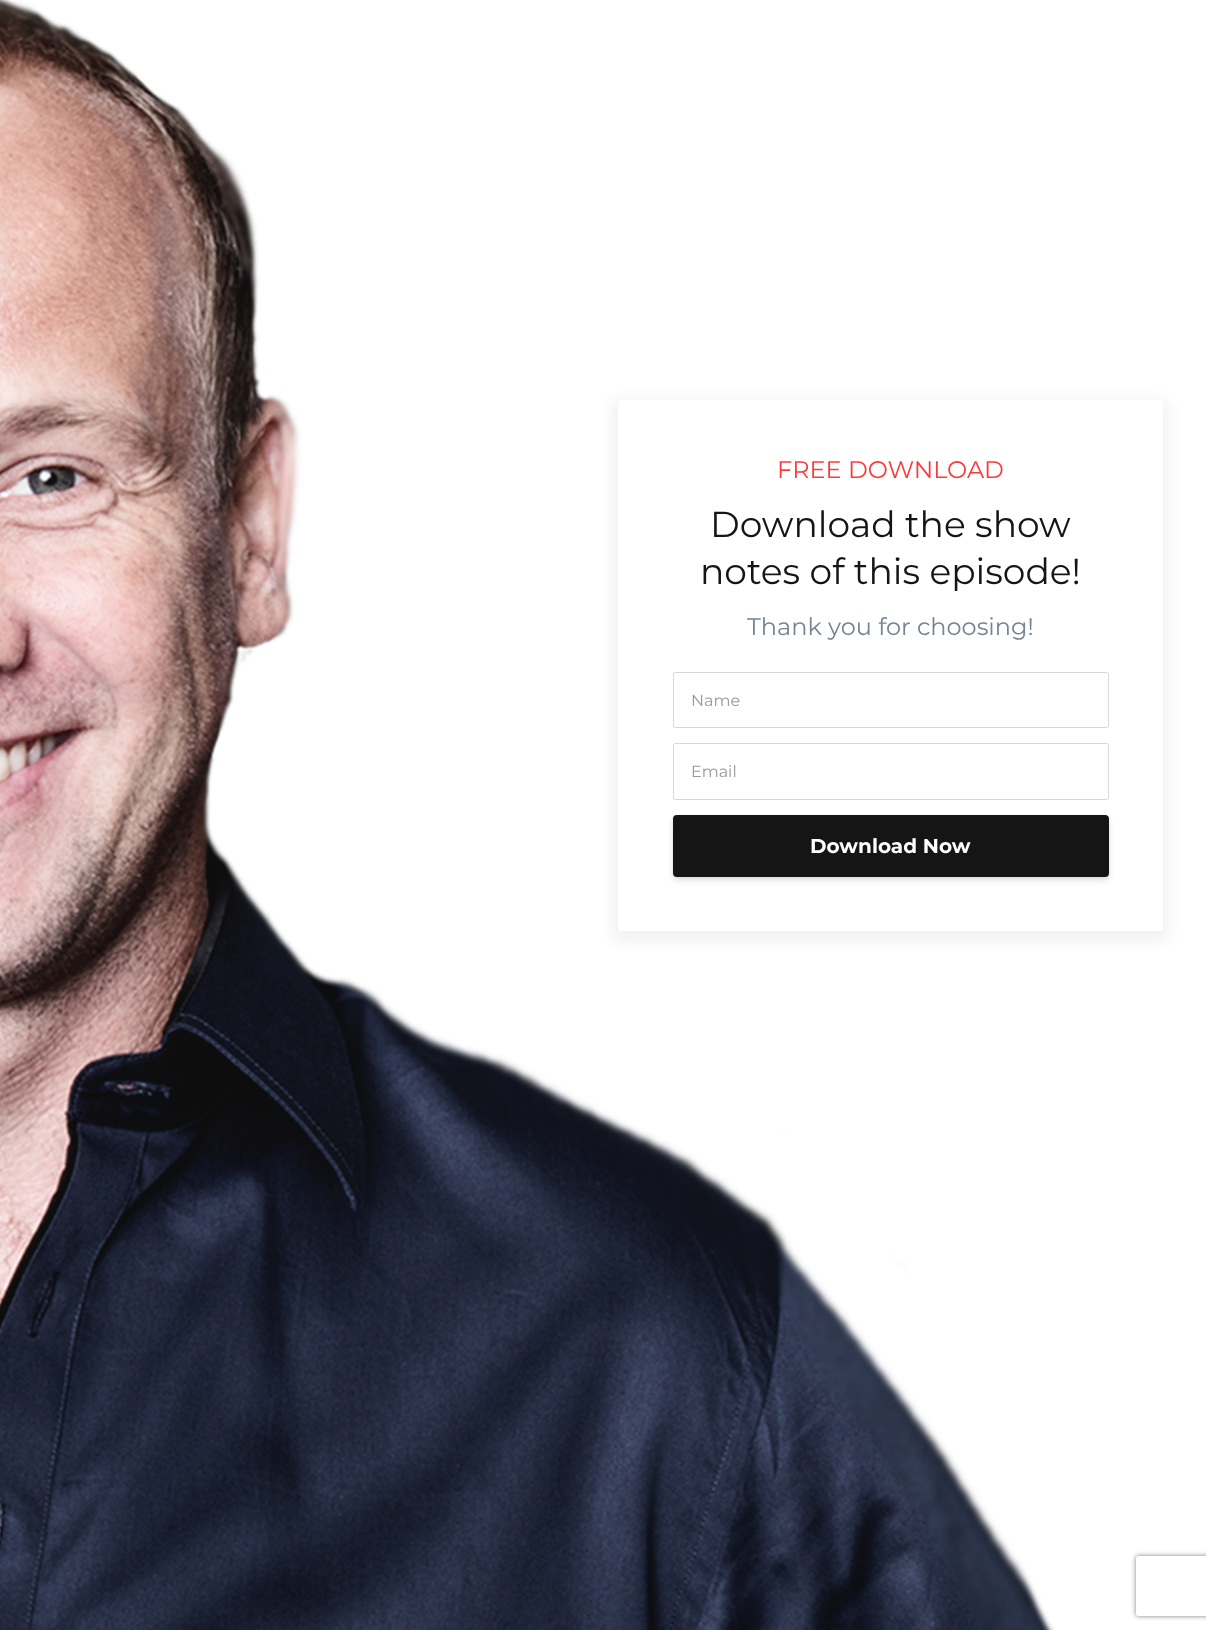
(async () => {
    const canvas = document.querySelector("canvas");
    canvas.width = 1206;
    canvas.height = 1630;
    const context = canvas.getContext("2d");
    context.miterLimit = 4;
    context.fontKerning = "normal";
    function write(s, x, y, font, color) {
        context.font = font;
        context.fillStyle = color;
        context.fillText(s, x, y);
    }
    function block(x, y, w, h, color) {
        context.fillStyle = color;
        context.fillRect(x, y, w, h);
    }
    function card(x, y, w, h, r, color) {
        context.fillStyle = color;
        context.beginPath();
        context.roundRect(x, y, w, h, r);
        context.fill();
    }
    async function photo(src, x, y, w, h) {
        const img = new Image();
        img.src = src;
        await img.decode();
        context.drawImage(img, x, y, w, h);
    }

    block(0, 0, 1206, 1630, "rgb(255, 255, 255)");
    await photo("media/1.png", 0, 0, 1055, 1630);
    context.fillStyle = "rgba(0, 0, 0, 0.05)";
    context.filter = "blur(7px)";
    context.beginPath();
    context.roundRect(612, 399, 557, 543, 9);
    context.fill();
    context.filter = "none";
    card(618, 400, 545, 531, 3, "rgb(255, 255, 255)");
    write("FREE DOWNLOAD", 777, 478, "24px Montserrat", "rgb(253, 57, 57)");
    write("Download the show", 710, 537, "36px Montserrat", "rgb(21, 21, 21)");
    write("notes of this episode!", 700, 584, "36px Montserrat", "rgb(21, 21, 21)");
    write("Thank you for choosing!", 747, 635, "24px Montserrat", "rgb(116, 132, 147)");
    context.beginPath();
    context.roundRect(673.5, 672.5, 435, 55, 1.5);
    context.strokeStyle = "rgb(217, 217, 217)";
    context.stroke();
    write("Name", 691, 706, "16px Montserrat", "rgb(153, 153, 153)");
    context.beginPath();
    context.roundRect(673.5, 743.5, 435, 56, 1.5);
    context.stroke();
    write("Email", 691, 777, "16px Montserrat", "rgb(153, 153, 153)");
    context.fillStyle = "rgba(0, 0, 0, 0.08)";
    context.filter = "blur(1.5px)";
    context.beginPath();
    context.roundRect(673, 816, 436, 62, 4);
    context.fill();
    context.filter = "none";
    context.fillStyle = "rgba(50, 50, 93, 0.11)";
    context.filter = "blur(3px)";
    context.beginPath();
    context.roundRect(673, 819, 436, 62, 4);
    context.fill();
    context.filter = "none";
    context.fillStyle = "rgb(21, 21, 21)";
    context.beginPath();
    context.roundRect(674, 816, 434, 60, 3);
    context.fill();
    context.strokeStyle = "rgb(21, 21, 21)";
    context.lineWidth = 2;
    context.stroke();
    write("Download Now", 810, 853, "bold 20px Montserrat", "rgb(255, 255, 255)");
    context.save();
    context.beginPath();
    context.moveTo(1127, 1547);
    context.lineTo(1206, 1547);
    context.lineTo(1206, 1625);
    context.lineTo(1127, 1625);
    context.closePath();
    context.moveTo(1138, 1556);
    context.lineTo(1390, 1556);
    context.bezierCurveTo(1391, 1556, 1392, 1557, 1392, 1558);
    context.lineTo(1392, 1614);
    context.bezierCurveTo(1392, 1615, 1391, 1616, 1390, 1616);
    context.lineTo(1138, 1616);
    context.bezierCurveTo(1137, 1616, 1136, 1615, 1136, 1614);
    context.lineTo(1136, 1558);
    context.bezierCurveTo(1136, 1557, 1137, 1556, 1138, 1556);
    context.closePath();
    context.clip("evenodd");
    context.fillStyle = "rgb(128, 128, 128)";
    context.filter = "blur(2.5px)";
    context.beginPath();
    context.roundRect(1136, 1556, 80, 60, 2);
    context.fill();
    context.filter = "none";
    context.restore();
})();
